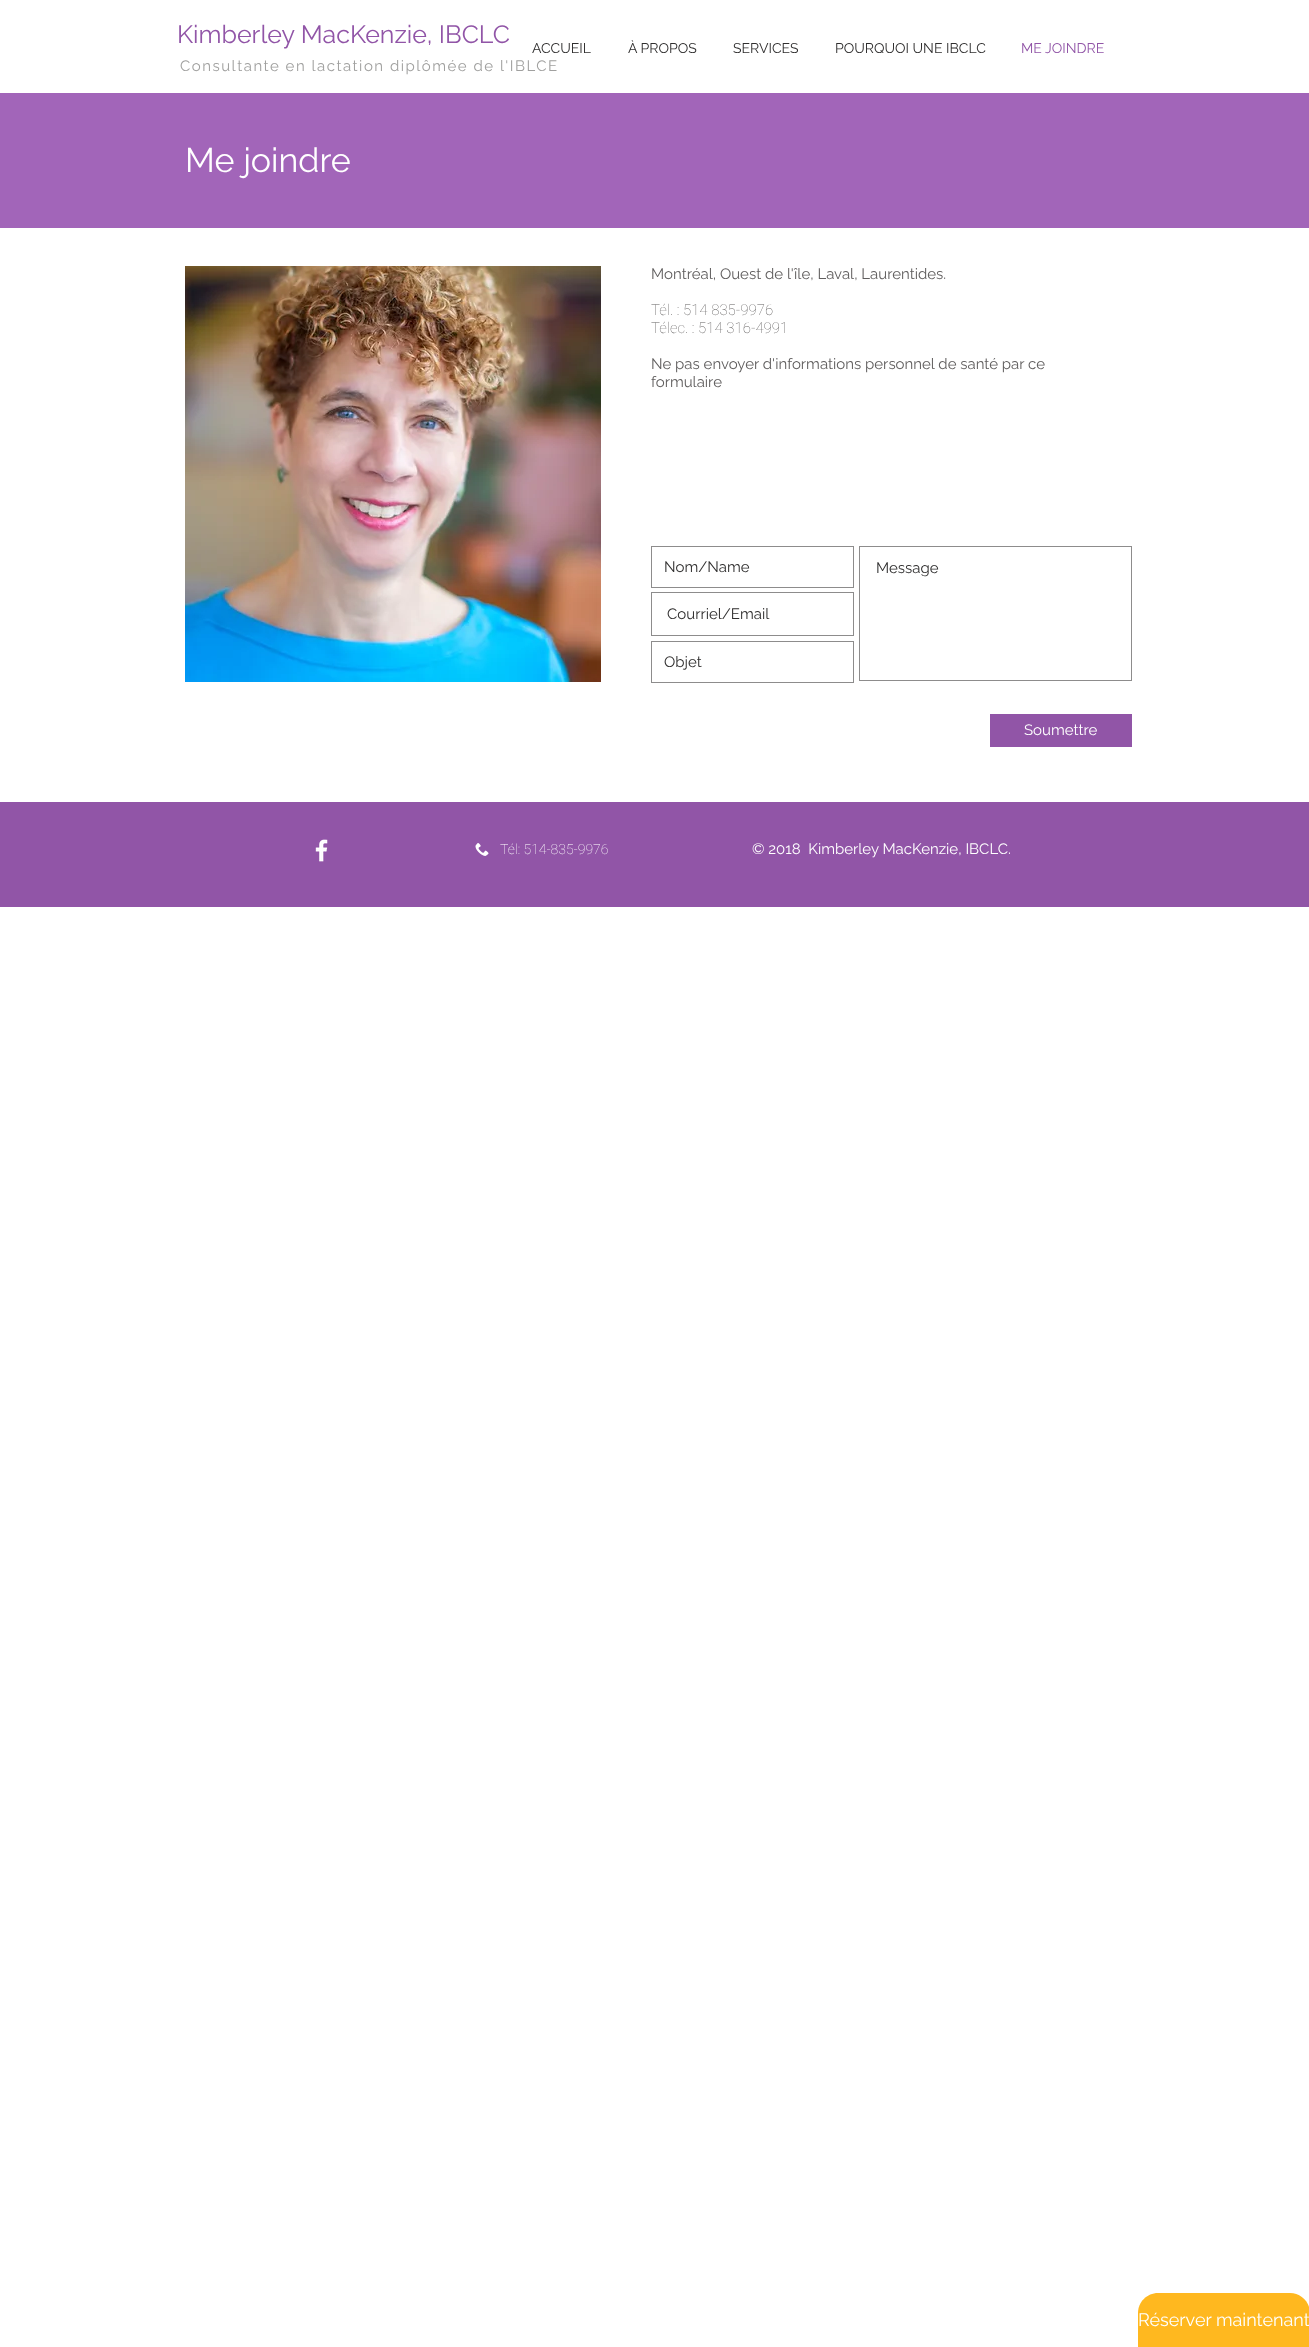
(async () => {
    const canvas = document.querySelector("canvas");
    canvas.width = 1309;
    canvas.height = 2347;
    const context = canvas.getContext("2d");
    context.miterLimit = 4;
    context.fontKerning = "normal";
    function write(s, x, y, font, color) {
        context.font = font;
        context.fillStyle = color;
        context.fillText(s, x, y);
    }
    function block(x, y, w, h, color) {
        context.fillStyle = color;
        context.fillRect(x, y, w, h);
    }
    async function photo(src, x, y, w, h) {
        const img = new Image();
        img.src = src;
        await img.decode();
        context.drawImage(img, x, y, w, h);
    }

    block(0, 0, 1309, 2347, "rgb(255, 255, 255)");
    write("Kimberley MacKenzie, IBCLC", 177, 43, "25px Raleway", "rgb(145, 85, 167)");
    write("ACCUEIL", 532, 53, "14px Raleway", "rgb(47, 46, 46)");
    write("À PROPOS", 628, 53, "14px Raleway", "rgb(47, 46, 46)");
    write("SERVICES", 733, 53, "14px Raleway", "rgb(47, 46, 46)");
    write("POURQUOI UNE IBCLC", 835, 53, "14px Raleway", "rgb(47, 46, 46)");
    write("ME JOINDRE", 1021, 53, "14px Raleway", "rgb(145, 85, 167)");
    context.letterSpacing = "1.5px";
    write("Consultante en lactation diplômée de l'IBLCE", 180, 71, "15px Raleway", "rgb(160, 160, 159)");
    block(0, 93, 1309, 135, "rgb(162, 101, 185)");
    context.letterSpacing = "0px";
    write("Me joindre", 185, 172, "34px Raleway", "rgb(255, 255, 255)");
    await photo("media/1.png", 185, 266, 416, 416);
    write("Montréal, Ouest de l'île, Laval, Laurentides.", 651, 279, "15px Raleway", "rgb(96, 94, 94)");
    write("Tél. : 514 835-9976", 651, 315, "100 15px Roboto", "rgb(96, 94, 94)");
    write("Télec. : 514 316-4991", 651, 333, "100 15px Roboto", "rgb(96, 94, 94)");
    write("Ne pas envoyer d'informations personnel de santé par ce", 651, 369, "15px Raleway", "rgb(96, 94, 94)");
    write("formulaire", 651, 387, "15px Raleway", "rgb(96, 94, 94)");
    context.strokeStyle = "rgb(141, 140, 140)";
    context.strokeRect(651.5, 546.5, 202, 41);
    write("Nom/Name", 664, 572, "15px Raleway", "rgb(47, 46, 46)");
    context.strokeRect(859.5, 546.5, 272, 134);
    write("Message", 876, 573, "15px Raleway", "rgb(47, 46, 46)");
    context.strokeRect(651.5, 592.5, 202, 43);
    write("Courriel/Email", 667, 619, "15px Raleway", "rgb(47, 46, 46)");
    context.strokeRect(651.5, 641.5, 202, 41);
    write("Objet", 664, 667, "15px Raleway", "rgb(47, 46, 46)");
    block(990, 714, 142, 33, "rgb(145, 85, 167)");
    write("Soumettre", 1024, 735, "15px Raleway", "rgb(255, 255, 255)");
    block(0, 802, 1309, 105, "rgb(145, 85, 167)");
    await photo("media/2.png", 315, 839, 13, 23);
    await photo("media/3.png", 475, 843, 14, 13);
    write("Tél: 514-835-9976", 500, 854, "100 14px Roboto", "rgb(255, 255, 255)");
    write("© 2018  Kimberley MacKenzie, IBCLC.", 752, 854, "15px Raleway", "rgb(255, 255, 255)");
    context.fillStyle = "rgb(255, 184, 31)";
    context.beginPath();
    context.moveTo(1158, 2293);
    context.lineTo(1290, 2293);
    context.bezierCurveTo(1301, 2293, 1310, 2302, 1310, 2313);
    context.lineTo(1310, 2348);
    context.lineTo(1138, 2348);
    context.lineTo(1138, 2313);
    context.bezierCurveTo(1138, 2302, 1147, 2293, 1158, 2293);
    context.closePath();
    context.fill();
    write("Réserver maintenant", 1138, 2326, "18px Raleway", "rgb(255, 255, 255)");
})();
